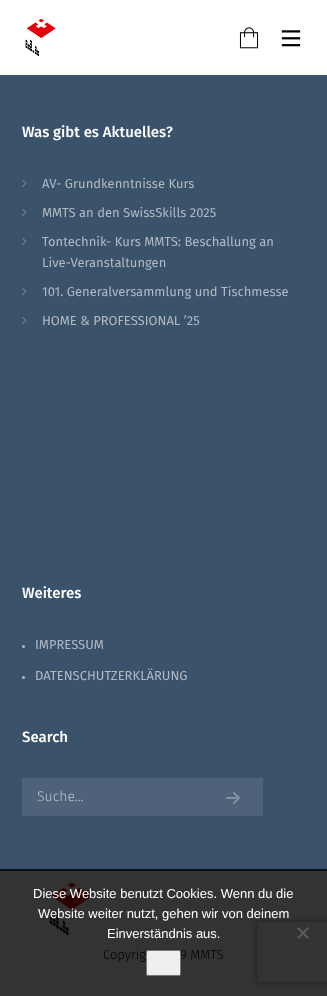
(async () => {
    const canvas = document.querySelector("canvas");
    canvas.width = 327;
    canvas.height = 996;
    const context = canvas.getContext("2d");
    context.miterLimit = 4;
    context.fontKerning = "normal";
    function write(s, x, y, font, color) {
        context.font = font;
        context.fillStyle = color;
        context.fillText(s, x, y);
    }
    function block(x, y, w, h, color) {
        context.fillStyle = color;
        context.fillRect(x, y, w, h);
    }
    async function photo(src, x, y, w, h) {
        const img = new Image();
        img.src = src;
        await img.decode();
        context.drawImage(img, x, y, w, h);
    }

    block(0, 0, 327, 996, "rgb(255, 255, 255)");
    block(0, 871, 327, 125, "rgb(51, 51, 51)");
    await photo("media/1.png", 25, 18, 31, 39);
    await photo("media/2.png", 239, 27, 20, 22);
    await photo("media/3.png", 281, 30, 20, 17);
    block(0, 75, 327, 794, "rgb(58, 82, 106)");
    block(0, 869, 327, 2, "rgb(12, 16, 21)");
    write("Was gibt es Aktuelles?", 22, 137, "500 15px Fira Sans", "rgb(255, 255, 255)");
    await photo("media/4.png", 22, 180, 5, 7);
    write("AV- Grundkenntnisse Kurs", 42, 188, "13px Fira Sans", "rgb(176, 186, 195)");
    await photo("media/4.png", 22, 209, 5, 7);
    write("MMTS an den SwissSkills 2025", 42, 217, "13px Fira Sans", "rgb(176, 186, 195)");
    await photo("media/4.png", 22, 238, 5, 7);
    write("Tontechnik- Kurs MMTS: Beschallung an", 42, 246, "13px Fira Sans", "rgb(176, 186, 195)");
    write("Live-Veranstaltungen", 42, 267, "13px Fira Sans", "rgb(176, 186, 195)");
    await photo("media/4.png", 22, 288, 5, 7);
    write("101. Generalversammlung und Tischmesse", 42, 296, "13px Fira Sans", "rgb(176, 186, 195)");
    await photo("media/4.png", 22, 317, 5, 7);
    write("HOME & PROFESSIONAL ’25", 42, 325, "13px Fira Sans", "rgb(176, 186, 195)");
    write("Weiteres", 22, 598, "500 15px Fira Sans", "rgb(255, 255, 255)");
    context.fillStyle = "rgb(176, 186, 195)";
    context.beginPath();
    context.arc(23.5, 646.5, 1.5, 0, Math.PI * 2);
    context.fill();
    write("IMPRESSUM", 35, 649, "13px Fira Sans", "rgb(176, 186, 195)");
    context.beginPath();
    context.arc(23.5, 677.5, 1.5, 0, Math.PI * 2);
    context.fill();
    write("DATENSCHUTZERKLÄRUNG", 35, 680, "13px Fira Sans", "rgb(176, 186, 195)");
    write("Search", 22, 742, "500 15px Fira Sans", "rgb(255, 255, 255)");
    block(22, 778, 241, 38, "rgb(78, 99, 121)");
    write("Suche...", 37, 801, "300 14px Fira Sans", "rgb(184, 193, 201)");
    await photo("media/5.png", 226, 792, 14, 12);
    await photo("media/6.png", 49, 882, 43, 54);
    write("Copyrig", 103, 959, "300 13px Fira Sans", "rgb(0, 0, 0)");
    write("9 MMTS", 180, 959, "300 13px Fira Sans", "rgb(0, 0, 0)");
    write("Diese Website benutzt Cookies. Wenn du die", 33, 898, "13px Liberation Sans", "rgb(255, 255, 255)");
    context.save();
    context.beginPath();
    context.moveTo(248, 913);
    context.lineTo(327, 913);
    context.lineTo(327, 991);
    context.lineTo(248, 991);
    context.closePath();
    context.moveTo(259, 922);
    context.lineTo(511, 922);
    context.bezierCurveTo(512, 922, 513, 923, 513, 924);
    context.lineTo(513, 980);
    context.bezierCurveTo(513, 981, 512, 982, 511, 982);
    context.lineTo(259, 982);
    context.bezierCurveTo(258, 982, 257, 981, 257, 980);
    context.lineTo(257, 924);
    context.bezierCurveTo(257, 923, 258, 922, 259, 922);
    context.closePath();
    context.clip("evenodd");
    context.fillStyle = "rgb(26, 26, 26)";
    context.filter = "blur(2.5px)";
    context.beginPath();
    context.roundRect(257, 922, 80, 60, 2);
    context.fill();
    context.filter = "none";
    context.restore();
    write("Website weiter nutzt, gehen wir von deinem", 38, 918, "13px Liberation Sans", "rgb(255, 255, 255)");
    write("Einverständnis aus.", 107, 938, "13px Liberation Sans", "rgb(255, 255, 255)");
    context.fillStyle = "rgb(90, 90, 90)";
    context.beginPath();
    context.moveTo(307.5, 927);
    context.lineTo(309, 928.5);
    context.lineTo(298.5, 939);
    context.lineTo(297, 937.5);
    context.closePath();
    context.fill();
    context.beginPath();
    context.moveTo(297, 928.5);
    context.lineTo(298.5, 927);
    context.lineTo(309, 937.5);
    context.lineTo(307.5, 939);
    context.closePath();
    context.fill();
    context.fillStyle = "rgb(239, 239, 239)";
    context.beginPath();
    context.roundRect(146.5, 950.5, 34, 25, 1.5);
    context.fill();
    context.strokeStyle = "rgb(118, 118, 118)";
    context.stroke();
})();
